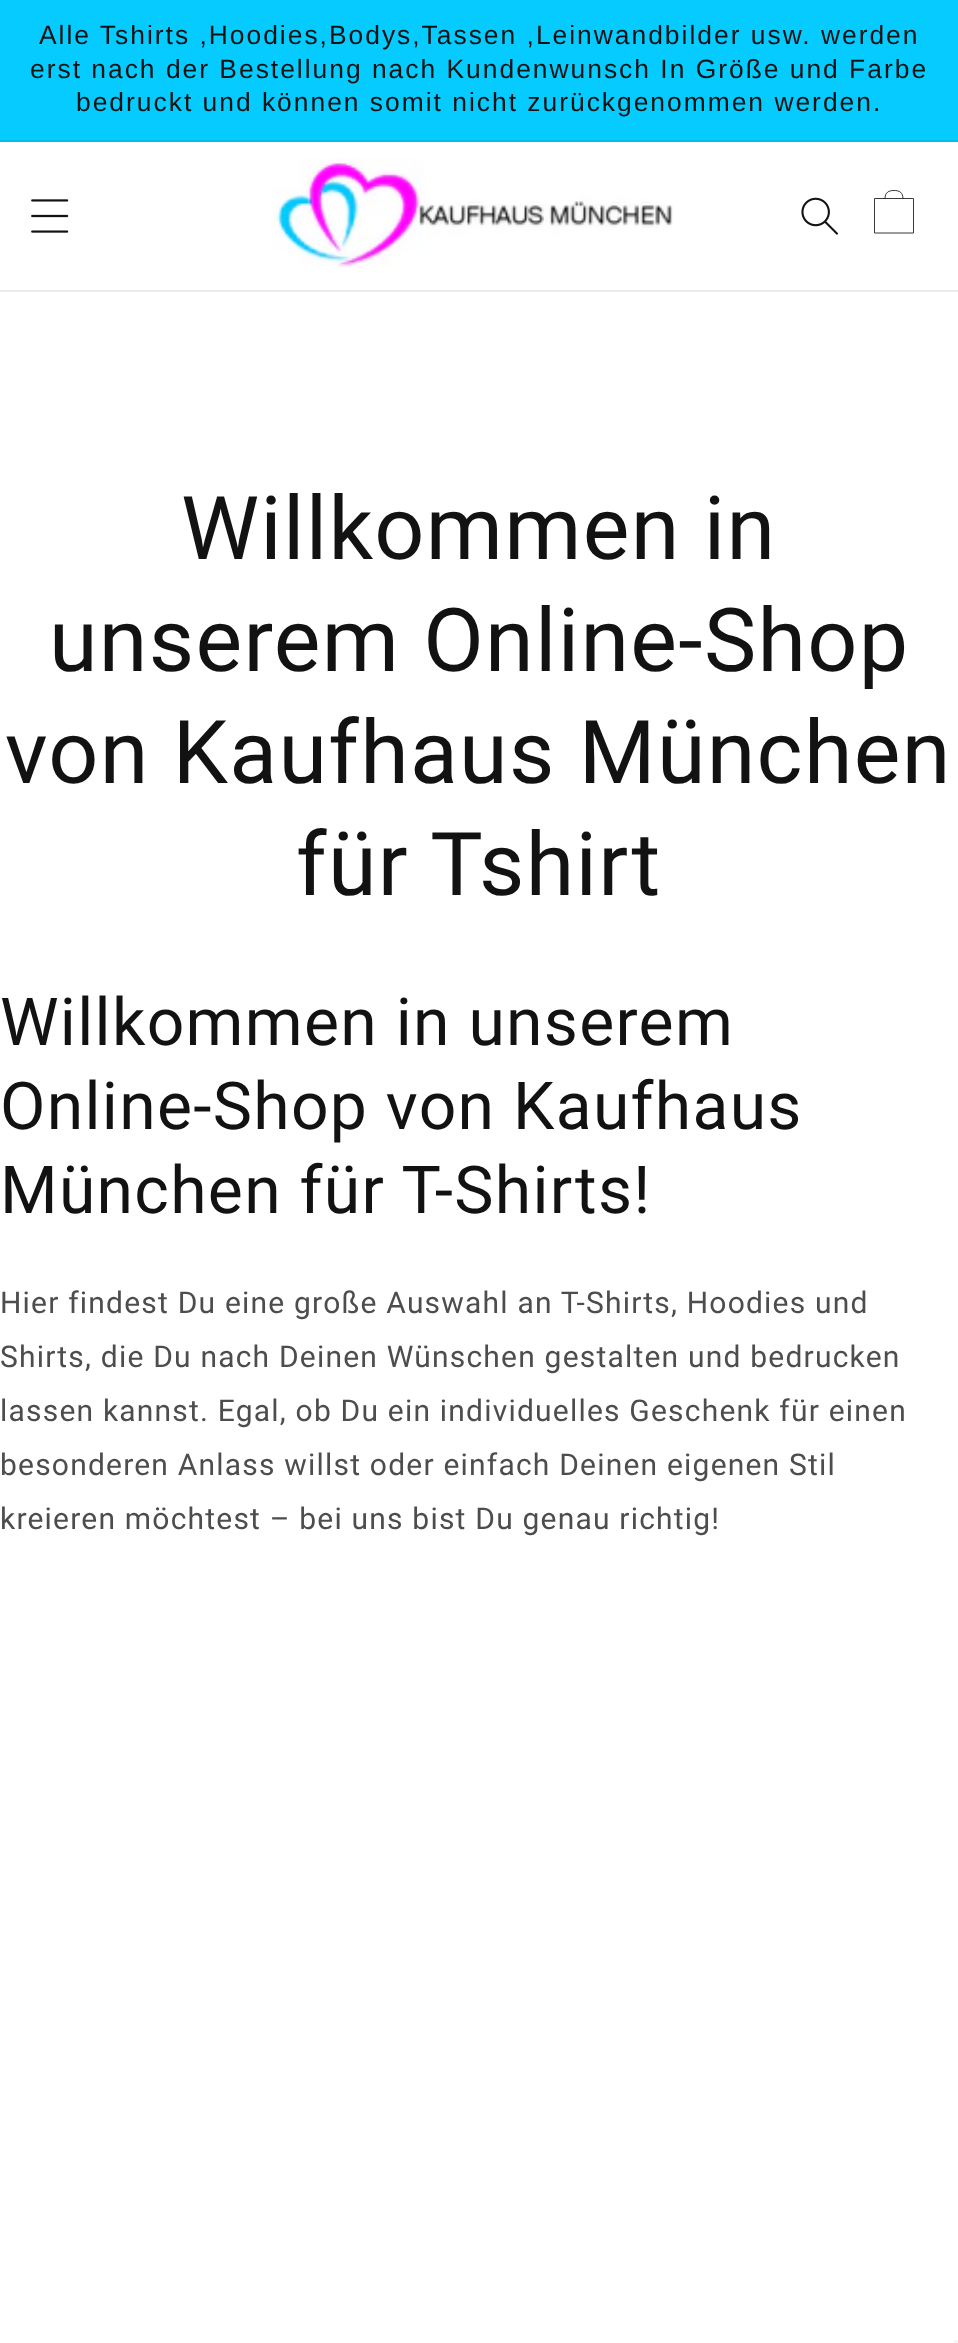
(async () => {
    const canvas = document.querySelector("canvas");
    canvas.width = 958;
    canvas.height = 2343;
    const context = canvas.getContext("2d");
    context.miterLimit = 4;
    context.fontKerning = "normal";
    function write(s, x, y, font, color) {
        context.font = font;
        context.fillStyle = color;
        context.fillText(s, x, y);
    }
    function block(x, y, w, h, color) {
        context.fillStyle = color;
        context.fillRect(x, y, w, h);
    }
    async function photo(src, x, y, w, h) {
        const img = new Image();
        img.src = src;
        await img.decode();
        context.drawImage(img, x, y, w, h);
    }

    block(0, 0, 958, 2343, "rgb(255, 255, 255)");
    block(0, 0, 958, 140, "rgb(5, 203, 255)");
    block(0, 140, 958, 2, "rgb(6, 188, 236)");
    context.letterSpacing = "2px";
    write("Alle Tshirts ,Hoodies,Bodys,Tassen ,Leinwandbilder usw. werden", 39, 44, "26.4px Liberation Sans", "rgb(18, 18, 18)");
    write("erst nach der Bestellung nach Kundenwunsch In Größe und Farbe", 30, 78, "26.4px Liberation Sans", "rgb(18, 18, 18)");
    write("bedruckt und können somit nicht zurückgenommen werden.", 76, 111, "26.4px Liberation Sans", "rgb(18, 18, 18)");
    block(0, 290, 958, 2, "rgb(236, 236, 236)");
    await photo("media/1.png", 31, 199, 38, 34);
    await photo("media/2.png", 271, 158, 402, 111);
    await photo("media/3.png", 801, 197, 37, 38);
    context.beginPath();
    context.moveTo(874.5, 198.5);
    context.lineTo(913.5, 198.5);
    context.lineTo(913.5, 233);
    context.lineTo(874.5, 233);
    context.closePath();
    context.moveTo(885, 199);
    context.bezierCurveTo(885, 192, 889, 190.5, 894, 190.5);
    context.bezierCurveTo(899, 190.5, 903, 192, 903, 199);
    context.strokeStyle = "rgb(34, 34, 34)";
    context.lineWidth = 0.9;
    context.stroke();
    context.letterSpacing = "1.3px";
    write("Willkommen in", 181, 559, "88px Roboto", "rgb(18, 18, 18)");
    write("unserem Online-Shop", 49, 671, "88px Roboto", "rgb(18, 18, 18)");
    write("von Kaufhaus München", 5, 783, "88px Roboto", "rgb(18, 18, 18)");
    write("für Tshirt", 296, 895, "88px Roboto", "rgb(18, 18, 18)");
    write("Willkommen in unserem", 0, 1045, "66px Roboto", "rgb(18, 18, 18)");
    write("Online-Shop von Kaufhaus", 0, 1129, "66px Roboto", "rgb(18, 18, 18)");
    write("München für T-Shirts!", 0, 1213, "66px Roboto", "rgb(18, 18, 18)");
    context.letterSpacing = "1.2px";
    write("Hier findest Du eine große Auswahl an T-Shirts, Hoodies und", 0, 1313, "30px Roboto", "rgb(77, 77, 77)");
    write("Shirts, die Du nach Deinen Wünschen gestalten und bedrucken", 0, 1367, "30px Roboto", "rgb(77, 77, 77)");
    write("lassen kannst. Egal, ob Du ein individuelles Geschenk für einen", 0, 1421, "30px Roboto", "rgb(77, 77, 77)");
    write("besonderen Anlass willst oder einfach Deinen eigenen Stil", 0, 1475, "30px Roboto", "rgb(77, 77, 77)");
    write("kreieren möchtest – bei uns bist Du genau richtig!", 0, 1529, "30px Roboto", "rgb(77, 77, 77)");
    block(954, 2340, 4, 3, "rgb(245, 245, 245)");
})();
